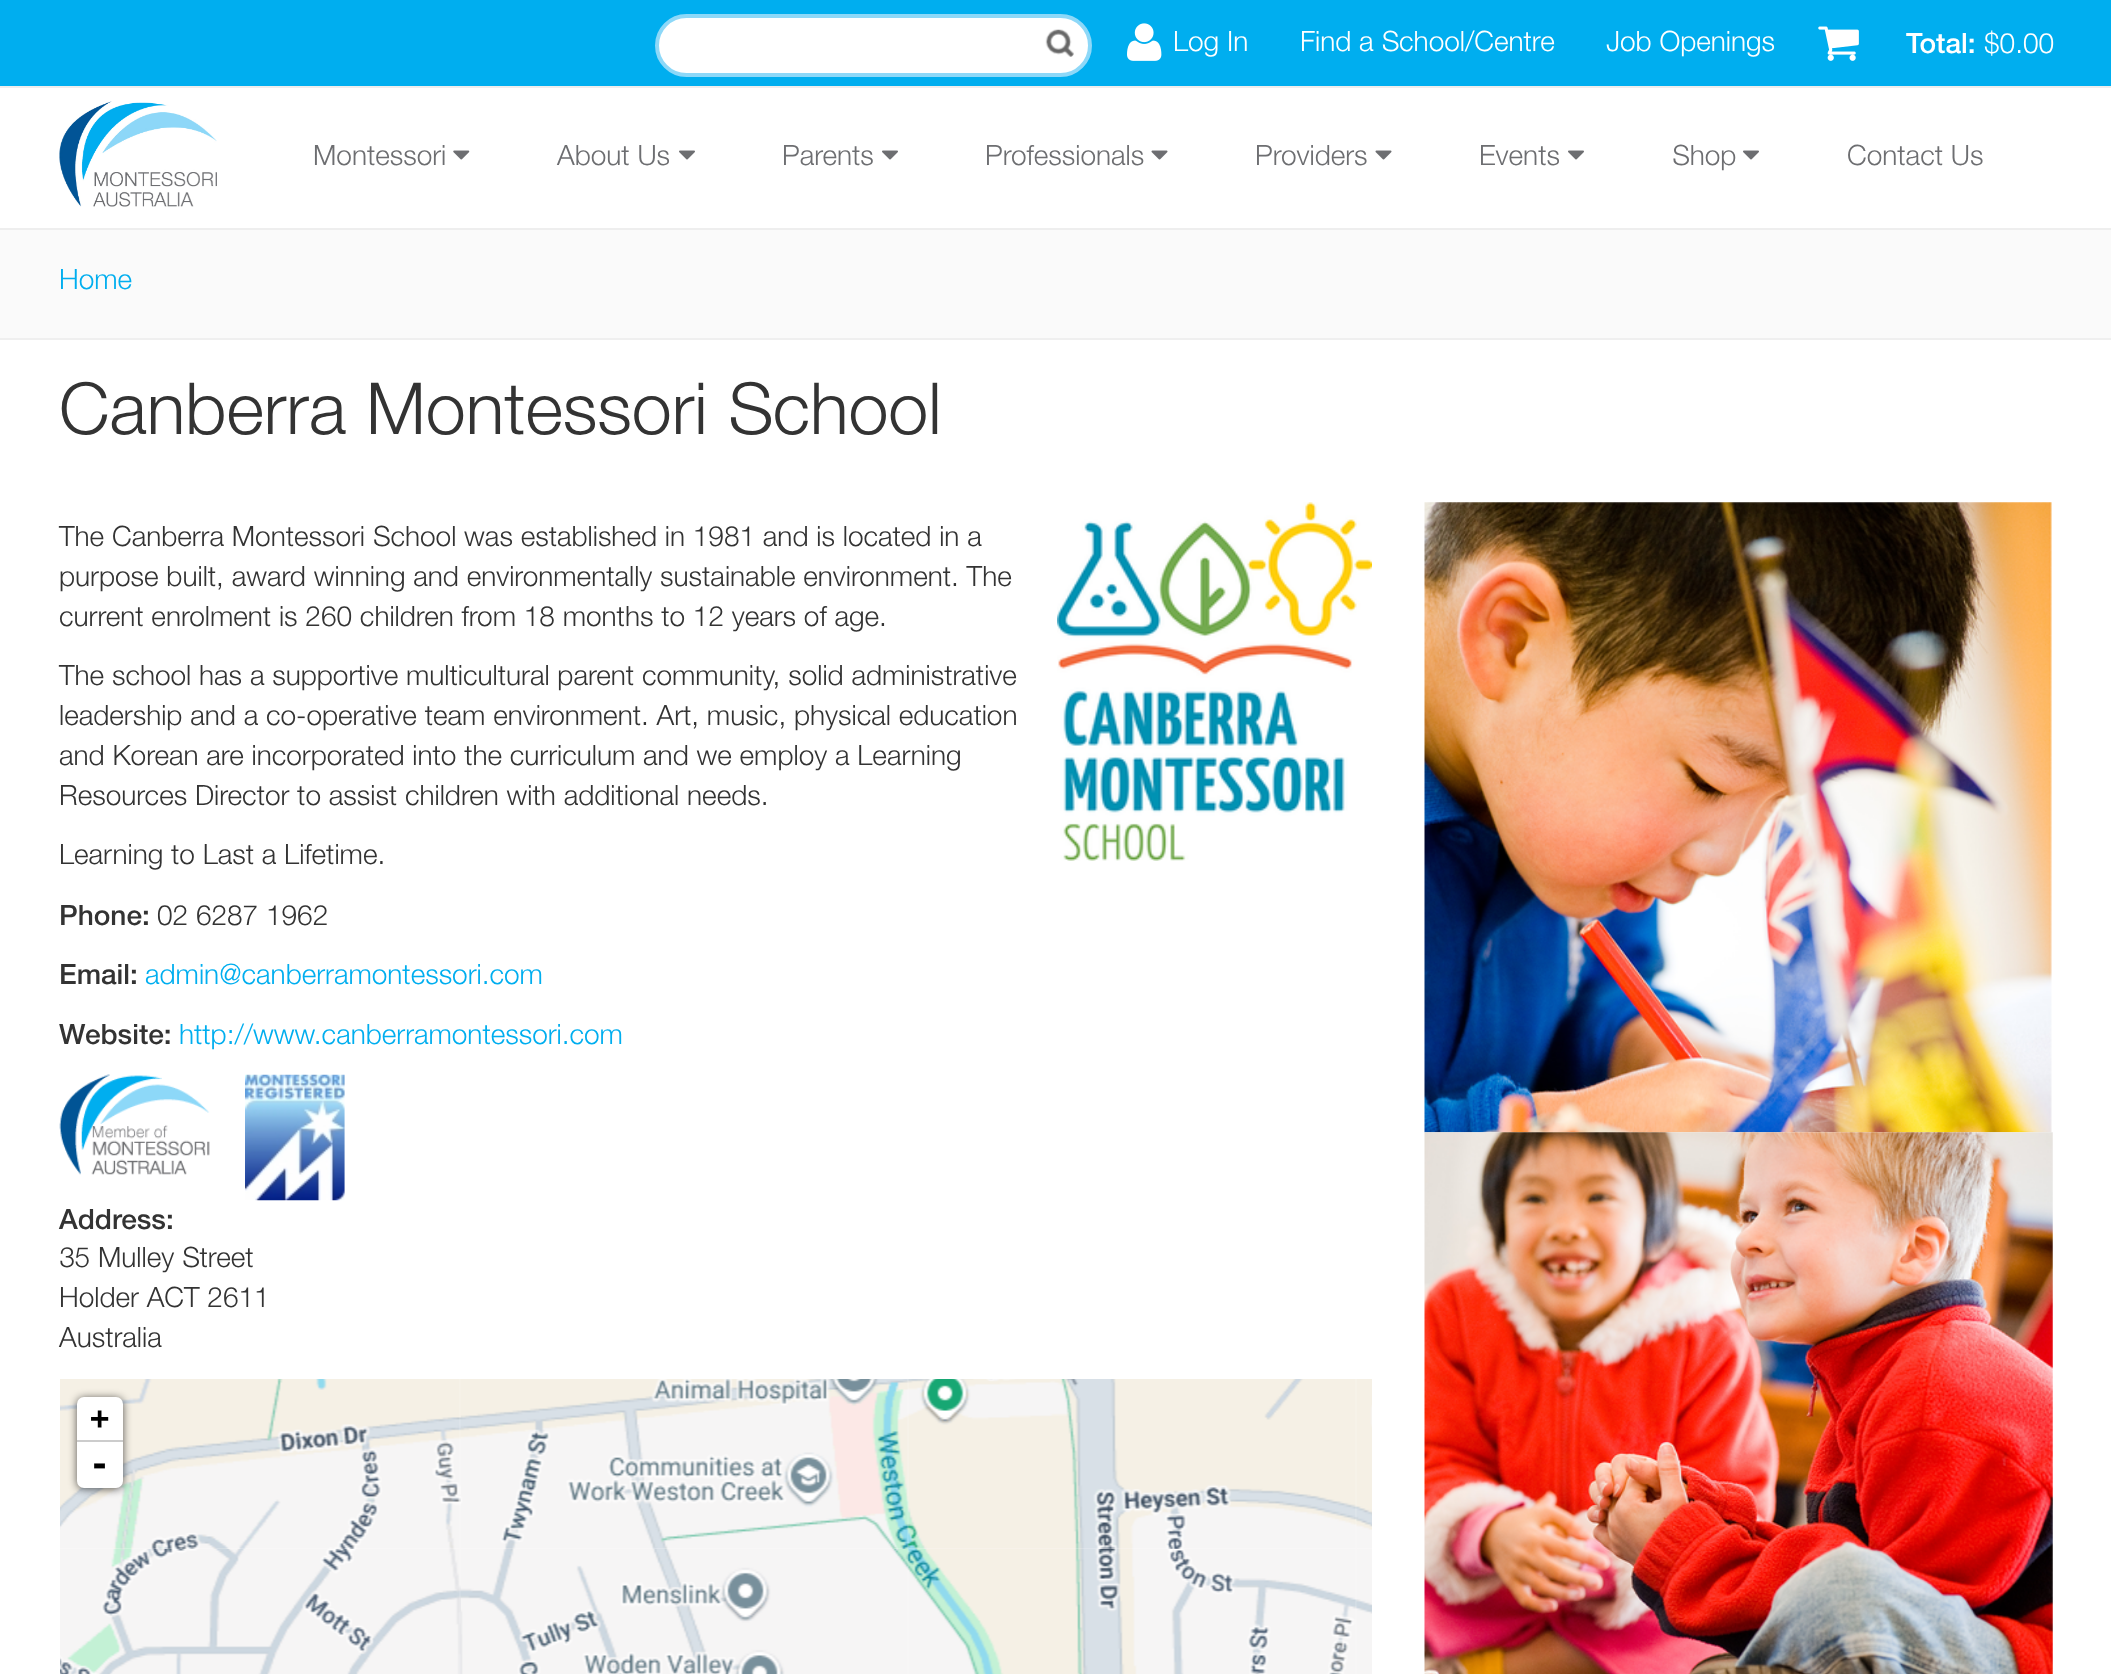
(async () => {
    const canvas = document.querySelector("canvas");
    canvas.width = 2111;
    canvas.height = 1674;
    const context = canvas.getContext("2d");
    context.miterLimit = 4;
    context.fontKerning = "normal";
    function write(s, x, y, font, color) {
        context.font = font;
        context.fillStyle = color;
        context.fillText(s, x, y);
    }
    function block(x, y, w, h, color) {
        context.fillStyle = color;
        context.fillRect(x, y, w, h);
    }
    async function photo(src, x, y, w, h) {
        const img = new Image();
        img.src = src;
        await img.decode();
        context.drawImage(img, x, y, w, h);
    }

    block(0, 0, 2111, 1674, "rgb(255, 255, 255)");
    block(0, 228, 2111, 2, "rgb(238, 238, 238)");
    block(0, 0, 2111, 86, "rgb(0, 174, 239)");
    block(0, 86, 2111, 2, "rgb(238, 238, 238)");
    context.fillStyle = "rgb(255, 255, 255)";
    context.beginPath();
    context.roundRect(657, 16, 433, 59, 29.5);
    context.fill();
    context.strokeStyle = "rgb(141, 216, 248)";
    context.lineWidth = 4;
    context.stroke();
    await photo("media/1.png", 1045, 29, 29, 28);
    await photo("media/2.png", 1127, 23, 35, 38);
    write("Log In", 1173, 51, "28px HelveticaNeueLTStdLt", "rgb(255, 255, 255)");
    write("Find a School/Centre", 1300, 51, "28px HelveticaNeueLTStdLt", "rgb(255, 255, 255)");
    write("Job Openings", 1606, 51, "28px HelveticaNeueLTStdLt", "rgb(255, 255, 255)");
    await photo("media/3.png", 1818, 26, 41, 35);
    write("Total:", 1906, 53, "28px 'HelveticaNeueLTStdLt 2'", "rgb(255, 255, 255)");
    write("$0.00", 1984, 53, "28px HelveticaNeueLTStdLt", "rgb(255, 255, 255)");
    await photo("media/4.png", 59, 101, 158, 106);
    write("Montessori", 313, 165, "28px HelveticaNeueLTStdLt", "rgb(109, 110, 113)");
    await photo("media/5.png", 453, 150, 17, 10);
    write("About Us", 557, 165, "28px HelveticaNeueLTStdLt", "rgb(109, 110, 113)");
    await photo("media/6.png", 679, 150, 16, 10);
    write("Parents", 782, 165, "28px HelveticaNeueLTStdLt", "rgb(109, 110, 113)");
    await photo("media/6.png", 882, 150, 16, 10);
    write("Professionals", 985, 165, "28px HelveticaNeueLTStdLt", "rgb(109, 110, 113)");
    await photo("media/7.png", 1151, 150, 17, 10);
    write("Providers", 1255, 165, "28px HelveticaNeueLTStdLt", "rgb(109, 110, 113)");
    await photo("media/7.png", 1375, 150, 17, 10);
    write("Events", 1479, 165, "28px HelveticaNeueLTStdLt", "rgb(109, 110, 113)");
    await photo("media/6.png", 1568, 150, 16, 10);
    write("Shop", 1672, 165, "28px HelveticaNeueLTStdLt", "rgb(109, 110, 113)");
    await photo("media/6.png", 1743, 150, 16, 10);
    write("Contact Us", 1847, 165, "28px HelveticaNeueLTStdLt", "rgb(109, 110, 113)");
    block(0, 230, 2111, 108, "rgb(250, 250, 250)");
    block(0, 338, 2111, 2, "rgb(239, 239, 239)");
    write("Home", 59, 289, "28px HelveticaNeueLTStdLt", "rgb(0, 174, 239)");
    write("Canberra Montessori School", 59, 434, "71.75px HelveticaNeueLTStdLt", "rgb(51, 51, 51)");
    write("The Canberra Montessori School was established in 1981 and is located in a", 59, 546, "28px HelveticaNeueLTStdLt", "rgb(51, 51, 51)");
    write("purpose built, award winning and environmentally sustainable environment. The", 59, 586, "28px HelveticaNeueLTStdLt", "rgb(51, 51, 51)");
    write("current enrolment is 260 children from 18 months to 12 years of age.", 59, 626, "28px HelveticaNeueLTStdLt", "rgb(51, 51, 51)");
    write("The school has a supportive multicultural parent community, solid administrative", 59, 685, "28px HelveticaNeueLTStdLt", "rgb(51, 51, 51)");
    write("leadership and a co-operative team environment. Art, music, physical education", 59, 725, "28px HelveticaNeueLTStdLt", "rgb(51, 51, 51)");
    write("and Korean are incorporated into the curriculum and we employ a Learning", 59, 765, "28px HelveticaNeueLTStdLt", "rgb(51, 51, 51)");
    write("Resources Director to assist children with additional needs.", 59, 805, "28px HelveticaNeueLTStdLt", "rgb(51, 51, 51)");
    write("Learning to Last a Lifetime.", 59, 864, "28px HelveticaNeueLTStdLt", "rgb(51, 51, 51)");
    await photo("media/8.png", 1057, 502, 315, 359);
    write("Phone:", 59, 925, "28px 'HelveticaNeueLTStdLt 2'", "rgb(51, 51, 51)");
    write("02 6287 1962", 157, 925, "28px HelveticaNeueLTStdLt", "rgb(51, 51, 51)");
    write("Email:", 59, 984, "28px 'HelveticaNeueLTStdLt 2'", "rgb(51, 51, 51)");
    write("admin@canberramontessori.com", 145, 984, "28px HelveticaNeueLTStdLt", "rgb(0, 174, 239)");
    write("Website:", 59, 1044, "28px 'HelveticaNeueLTStdLt 2'", "rgb(51, 51, 51)");
    write("http://www.canberramontessori.com", 179, 1044, "28px HelveticaNeueLTStdLt", "rgb(0, 174, 239)");
    await photo("media/9.png", 59, 1074, 151, 101);
    await photo("media/10.png", 245, 1074, 100, 127);
    write("Address:", 59, 1229, "28px 'HelveticaNeueLTStdLt 2'", "rgb(51, 51, 51)");
    write("35 Mulley Street", 59, 1267, "28px HelveticaNeueLTStdLt", "rgb(51, 51, 51)");
    write("Holder ACT 2611", 59, 1307, "28px HelveticaNeueLTStdLt", "rgb(51, 51, 51)");
    write("Australia", 59, 1347, "28px HelveticaNeueLTStdLt", "rgb(51, 51, 51)");
    await photo("media/16.png", 460, 1548, 449, 126);
    await photo("media/12.png", 460, 1379, 449, 170);
    await photo("media/15.png", 60, 1548, 401, 126);
    await photo("media/11.png", 60, 1379, 401, 170);
    await photo("media/17.png", 907, 1548, 450, 126);
    await photo("media/13.png", 907, 1379, 450, 170);
    await photo("media/18.png", 1356, 1548, 16, 126);
    await photo("media/14.png", 1356, 1379, 16, 170);
    context.fillStyle = "rgba(0, 0, 0, 0.65)";
    context.filter = "blur(4.5px)";
    context.beginPath();
    context.roundRect(77, 1398, 46, 91, 7);
    context.fill();
    context.filter = "none";
    context.fillStyle = "rgb(255, 255, 255)";
    context.beginPath();
    context.roundRect(77, 1397, 46, 45, [7, 7, 0, 0]);
    context.fill();
    block(77, 1440, 46, 2, "rgb(204, 204, 204)");
    write("+", 90, 1429, "bold 32px DejaVu Sans Mono", "rgb(0, 0, 0)");
    context.fillStyle = "rgb(255, 255, 255)";
    context.beginPath();
    context.roundRect(77, 1442, 46, 46, [0, 0, 7, 7]);
    context.fill();
    write("-", 89, 1476, "bold 35px DejaVu Sans Mono", "rgb(0, 0, 0)");
    await photo("media/19.png", 1424, 502, 628, 631);
    await photo("media/20.png", 1424, 1132, 629, 542);
})();
